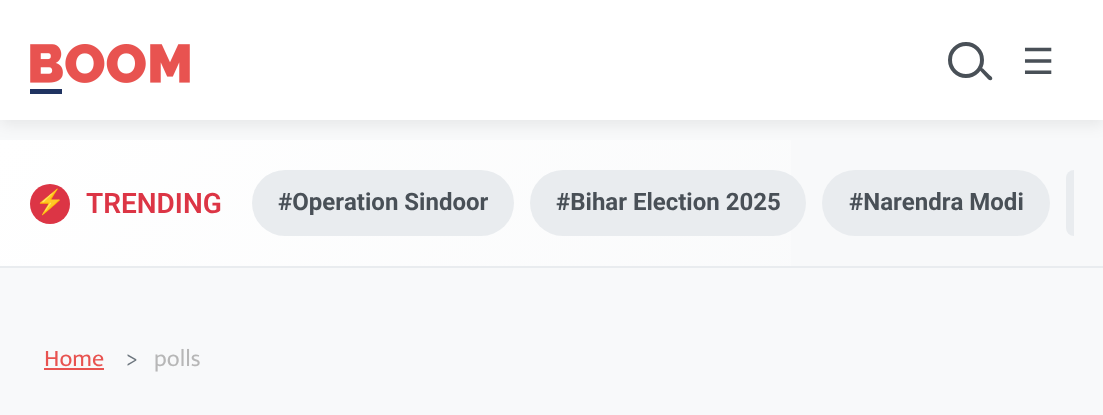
(async () => {
    const canvas = document.querySelector("canvas");
    canvas.width = 1103;
    canvas.height = 415;
    const context = canvas.getContext("2d");
    context.miterLimit = 4;
    context.fontKerning = "none";
    function write(s, x, y, font, color) {
        context.font = font;
        context.fillStyle = color;
        context.fillText(s, x, y);
    }
    function block(x, y, w, h, color) {
        context.fillStyle = color;
        context.fillRect(x, y, w, h);
    }
    function card(x, y, w, h, r, color) {
        context.fillStyle = color;
        context.beginPath();
        context.roundRect(x, y, w, h, r);
        context.fill();
    }
    async function photo(src, x, y, w, h) {
        const img = new Image();
        img.src = src;
        await img.decode();
        context.drawImage(img, x, y, w, h);
    }
    let gradient;

    block(0, 0, 1103, 415, "rgb(248, 249, 250)");
    gradient = context.createLinearGradient(244, -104, 860, 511);
    gradient.addColorStop(0, "rgb(255, 255, 255)");
    gradient.addColorStop(1, "rgb(248, 249, 250)");
    context.fillStyle = gradient;
    context.fillRect(0, 140, 791, 126);
    context.fillStyle = "rgba(0, 0, 0, 0.08)";
    context.filter = "blur(8px)";
    context.beginPath();
    context.rect(0, 4, 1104, 120);
    context.fill();
    context.filter = "none";
    block(0, 0, 1103, 120, "rgb(255, 255, 255)");
    await photo("media/1.png", 30, 44, 160, 50);
    context.beginPath();
    context.arc(966, 60, 16, 0, Math.PI * 2);
    context.strokeStyle = "rgb(73, 80, 87)";
    context.lineWidth = 4;
    context.stroke();
    context.fillStyle = "rgb(73, 80, 87)";
    context.beginPath();
    context.moveTo(983, 68.5);
    context.lineTo(990, 75.5);
    context.bezierCurveTo(991.5, 76.5, 993, 77.5, 992, 79.5);
    context.bezierCurveTo(990, 82, 987, 78, 986, 77);
    context.lineTo(980, 70.5);
    context.bezierCurveTo(979, 68.5, 981.5, 67, 983, 68.5);
    context.closePath();
    context.fill();
    write("☰", 1022, 74, "36px DejaVu Sans", "rgb(73, 80, 87)");
    block(0, 266, 1103, 2, "rgb(233, 236, 239)");
    context.fillStyle = "rgb(220, 53, 69)";
    context.beginPath();
    context.arc(50, 204, 20, 0, Math.PI * 2);
    context.fill();
    write("⚡", 35, 210, "bold 24px Noto Color Emoji", "rgb(255, 255, 255)");
    write("TRENDING", 86, 213, "600 28px Roboto", "rgb(220, 53, 69)");
    card(252, 170, 262, 66, 33, "rgb(233, 236, 239)");
    write("#Operation Sindoor", 278, 210, "bold 24px Roboto", "rgb(73, 80, 87)");
    card(530, 170, 276, 66, 33, "rgb(233, 236, 239)");
    write("#Bihar Election 2025", 556, 210, "bold 24px Roboto", "rgb(73, 80, 87)");
    card(822, 170, 228, 66, 33, "rgb(233, 236, 239)");
    write("#Narendra Modi", 849, 210, "bold 24px Roboto", "rgb(73, 80, 87)");
    context.fillStyle = "rgb(233, 236, 239)";
    context.beginPath();
    context.roundRect(1066, 170, 8, 66, [33, 0, 0, 33]);
    context.fill();
    write("Home", 44, 366, "24px Mukta", "rgb(232, 83, 80)");
    block(44, 368, 60, 2, "rgb(232, 83, 80)");
    write(">", 126, 366, "24px Mukta", "rgb(108, 117, 125)");
    write("polls", 154, 366, "24px Mukta", "rgb(183, 183, 183)");
})();
